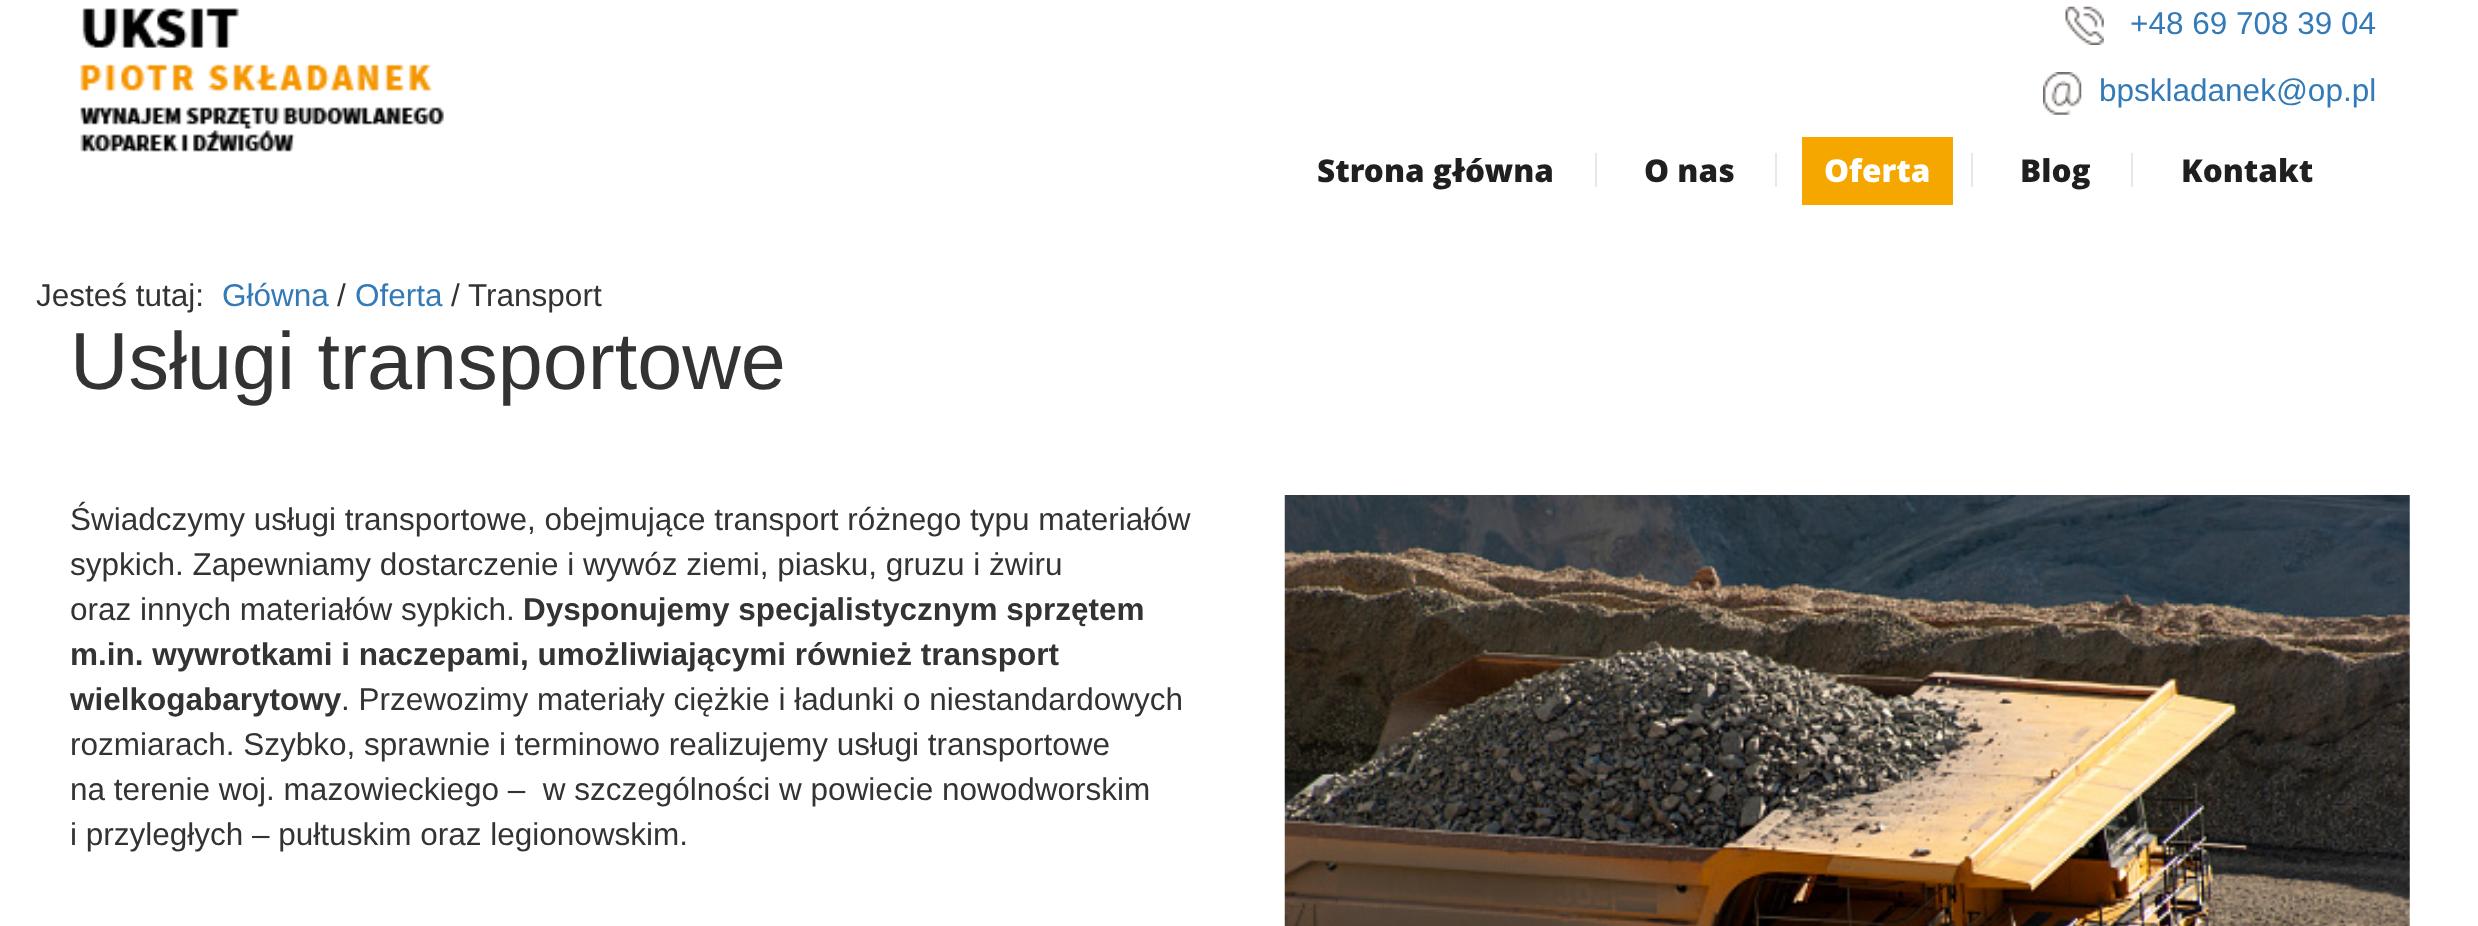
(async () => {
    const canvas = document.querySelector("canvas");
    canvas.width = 2478;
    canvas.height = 926;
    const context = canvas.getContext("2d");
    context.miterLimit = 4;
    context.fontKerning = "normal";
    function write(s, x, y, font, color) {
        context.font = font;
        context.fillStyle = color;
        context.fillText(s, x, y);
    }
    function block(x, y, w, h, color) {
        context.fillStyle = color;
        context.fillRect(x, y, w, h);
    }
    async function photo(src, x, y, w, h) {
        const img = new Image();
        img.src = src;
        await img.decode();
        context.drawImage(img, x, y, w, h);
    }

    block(0, 0, 2478, 926, "rgb(255, 255, 255)");
    await photo("media/1.png", 80, 8, 364, 144);
    await photo("media/2.png", 2065, 6, 39, 39);
    write("+48 69 708 39 04", 2130, 34, "31.5px Liberation Sans", "rgb(51, 122, 183)");
    await photo("media/3.png", 2043, 72, 39, 43);
    write("bpskladanek@op.pl", 2099, 101, "31.5px Liberation Sans", "rgb(51, 122, 183)");
    write("Strona główna", 1317, 182, "800 31.5px Open Sans", "rgb(31, 31, 31)");
    block(1595, 153, 2, 34, "rgb(232, 232, 232)");
    write("O nas", 1644, 182, "800 31.5px Open Sans", "rgb(31, 31, 31)");
    block(1775, 153, 2, 34, "rgb(232, 232, 232)");
    block(1802, 137, 151, 68, "rgb(245, 167, 0)");
    write("Oferta", 1824, 182, "800 31.5px Open Sans", "rgb(255, 255, 255)");
    block(1971, 153, 2, 34, "rgb(232, 232, 232)");
    write("Blog", 2020, 182, "800 31.5px Open Sans", "rgb(31, 31, 31)");
    block(2131, 153, 2, 34, "rgb(232, 232, 232)");
    write("Kontakt", 2181, 182, "800 31.5px Open Sans", "rgb(31, 31, 31)");
    write("Jesteś tutaj:", 36, 306, "31.5px Liberation Sans", "rgb(51, 51, 51)");
    write("Główna", 222, 306, "31.5px Liberation Sans", "rgb(51, 122, 183)");
    write("/", 337, 306, "31.5px Liberation Sans", "rgb(51, 51, 51)");
    write("Oferta", 355, 306, "31.5px Liberation Sans", "rgb(51, 122, 183)");
    write("/", 451, 306, "31.5px Liberation Sans", "rgb(51, 51, 51)");
    write("Transport", 468, 306, "31.5px Liberation Sans", "rgb(51, 51, 51)");
    write("Usługi transportowe", 70, 389, "81px Liberation Sans", "rgb(51, 51, 51)");
    write("Świadczymy usługi transportowe, obejmujące transport różnego typu materiałów", 70, 530, "31.5px Liberation Sans", "rgb(51, 51, 51)");
    await photo("media/4.png", 1284, 495, 1126, 431);
    write("sypkich. Zapewniamy dostarczenie i wywóz ziemi, piasku, gruzu i żwiru", 70, 575, "31.5px Liberation Sans", "rgb(51, 51, 51)");
    write("oraz innych materiałów sypkich.", 70, 620, "31.5px Liberation Sans", "rgb(51, 51, 51)");
    write("Dysponujemy specjalistycznym sprzętem", 523, 620, "bold 31.5px Liberation Sans", "rgb(51, 51, 51)");
    write("m.in. wywrotkami i naczepami, umożliwiającymi również transport", 70, 665, "bold 31.5px Liberation Sans", "rgb(51, 51, 51)");
    write("wielkogabarytowy", 70, 710, "bold 31.5px Liberation Sans", "rgb(51, 51, 51)");
    write(". Przewozimy materiały ciężkie i ładunki o niestandardowych", 341, 710, "31.5px Liberation Sans", "rgb(51, 51, 51)");
    write("rozmiarach. Szybko, sprawnie i terminowo realizujemy usługi transportowe", 70, 755, "31.5px Liberation Sans", "rgb(51, 51, 51)");
    write("na terenie woj. mazowieckiego –  w szczególności w powiecie nowodworskim", 70, 800, "31.5px Liberation Sans", "rgb(51, 51, 51)");
    write("i przyległych – pułtuskim oraz legionowskim.", 70, 845, "31.5px Liberation Sans", "rgb(51, 51, 51)");
})();
